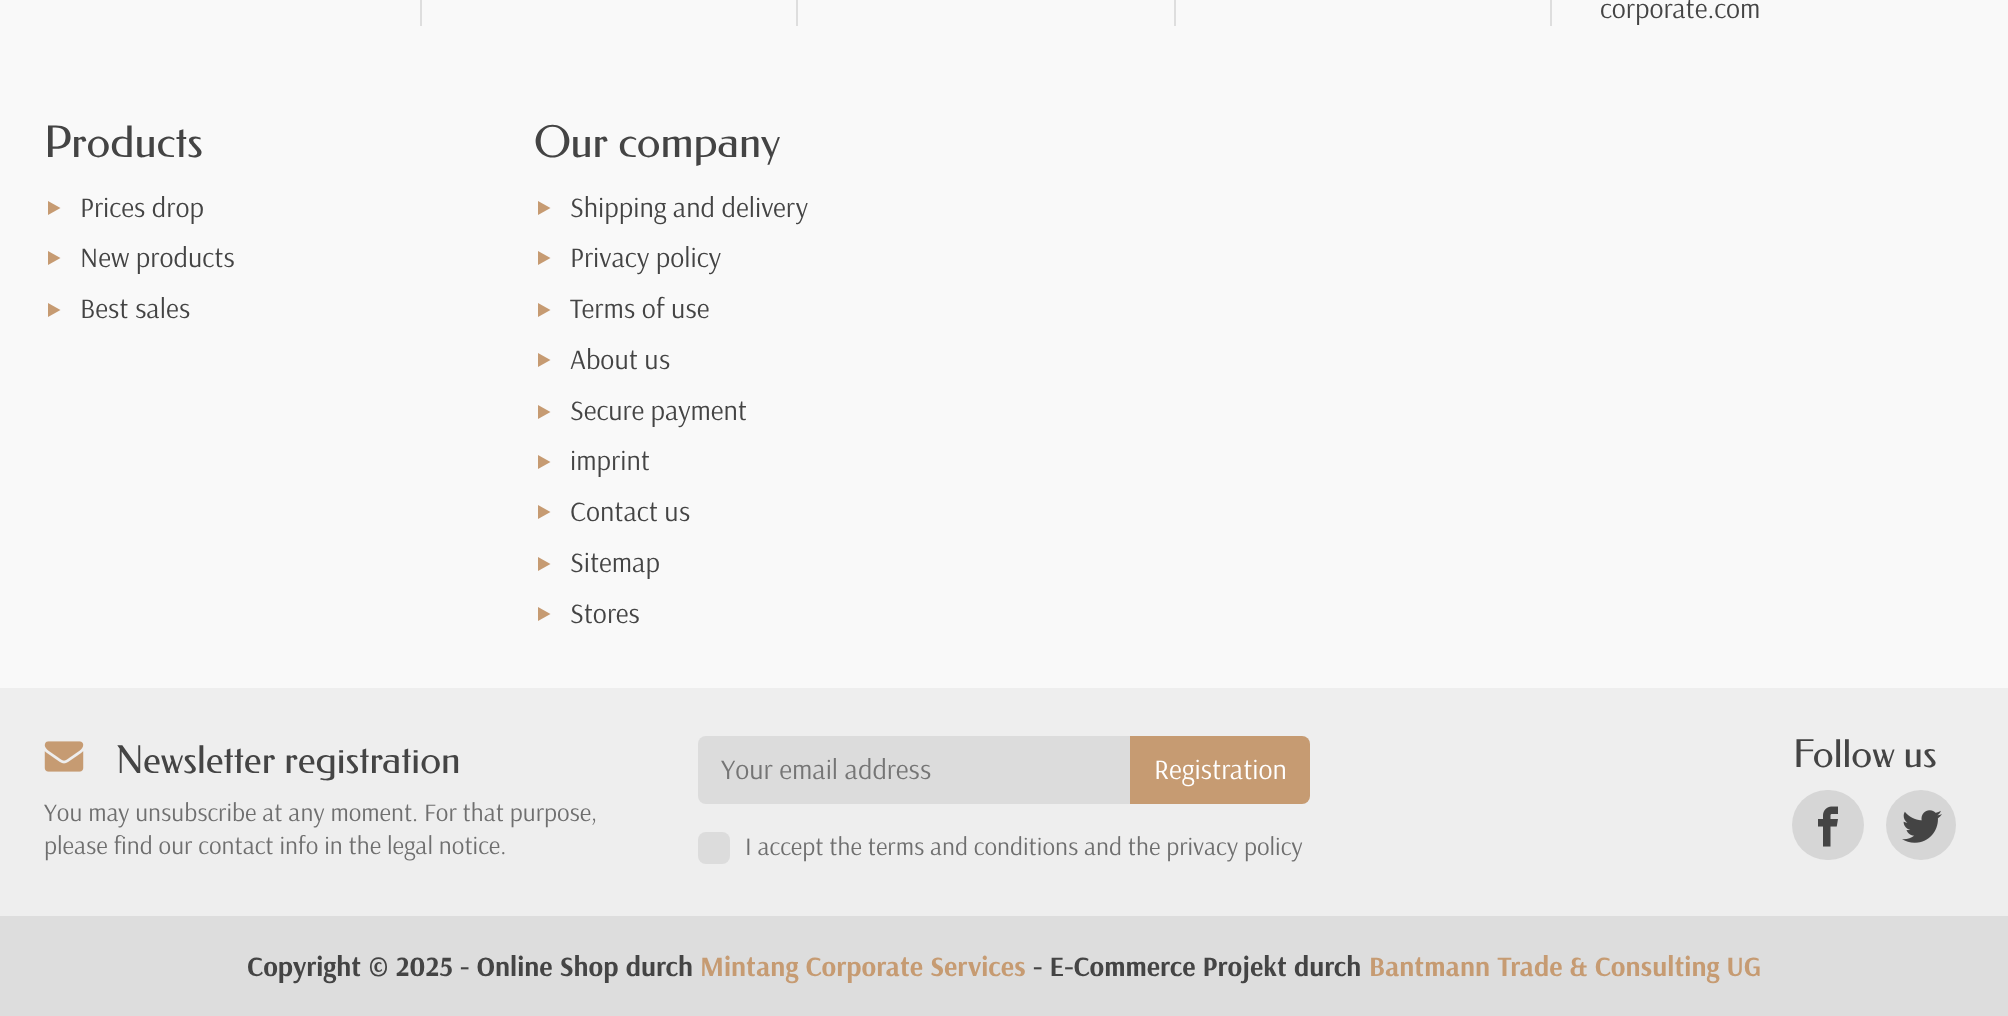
(async () => {
    const canvas = document.querySelector("canvas");
    canvas.width = 2008;
    canvas.height = 1016;
    const context = canvas.getContext("2d");
    context.miterLimit = 4;
    context.fontKerning = "normal";
    function write(s, x, y, font, color) {
        context.font = font;
        context.fillStyle = color;
        context.fillText(s, x, y);
    }
    function block(x, y, w, h, color) {
        context.fillStyle = color;
        context.fillRect(x, y, w, h);
    }
    function card(x, y, w, h, r, color) {
        context.fillStyle = color;
        context.beginPath();
        context.roundRect(x, y, w, h, r);
        context.fill();
    }
    async function photo(src, x, y, w, h) {
        const img = new Image();
        img.src = src;
        await img.decode();
        context.drawImage(img, x, y, w, h);
    }

    block(0, 0, 2008, 1016, "rgb(249, 249, 249)");
    block(420, 0, 2, 26, "rgb(222, 222, 222)");
    block(796, 0, 2, 26, "rgb(222, 222, 222)");
    block(1174, 0, 2, 26, "rgb(222, 222, 222)");
    block(1550, 0, 2, 26, "rgb(222, 222, 222)");
    write("corporate.com", 1600, 18, "28px Arsenal", "rgb(68, 68, 68)");
    write("Products", 44, 157, "43.5px Federo", "rgb(68, 68, 68)");
    context.fillStyle = "rgb(198, 155, 114)";
    context.beginPath();
    context.moveTo(60.5, 208);
    context.lineTo(48, 215);
    context.lineTo(48, 201);
    context.closePath();
    context.fill();
    write("Prices drop", 80, 217, "28px Arsenal", "rgb(68, 68, 68)");
    context.fillStyle = "rgb(198, 155, 114)";
    context.beginPath();
    context.moveTo(60.5, 258);
    context.lineTo(48, 265);
    context.lineTo(48, 251);
    context.closePath();
    context.fill();
    write("New products", 80, 267, "28px Arsenal", "rgb(68, 68, 68)");
    context.fillStyle = "rgb(198, 155, 114)";
    context.beginPath();
    context.moveTo(60.5, 310);
    context.lineTo(48, 317);
    context.lineTo(48, 303);
    context.closePath();
    context.fill();
    write("Best sales", 80, 318, "28px Arsenal", "rgb(68, 68, 68)");
    write("Our company", 534, 157, "43.5px Federo", "rgb(68, 68, 68)");
    context.fillStyle = "rgb(198, 155, 114)";
    context.beginPath();
    context.moveTo(550.5, 208);
    context.lineTo(538, 215);
    context.lineTo(538, 201);
    context.closePath();
    context.fill();
    write("Shipping and delivery", 570, 217, "28px Arsenal", "rgb(68, 68, 68)");
    context.fillStyle = "rgb(198, 155, 114)";
    context.beginPath();
    context.moveTo(550.5, 258);
    context.lineTo(538, 265);
    context.lineTo(538, 251);
    context.closePath();
    context.fill();
    write("Privacy policy", 570, 267, "28px Arsenal", "rgb(68, 68, 68)");
    context.fillStyle = "rgb(198, 155, 114)";
    context.beginPath();
    context.moveTo(550.5, 310);
    context.lineTo(538, 317);
    context.lineTo(538, 303);
    context.closePath();
    context.fill();
    write("Terms of use", 570, 318, "28px Arsenal", "rgb(68, 68, 68)");
    context.fillStyle = "rgb(198, 155, 114)";
    context.beginPath();
    context.moveTo(550.5, 360);
    context.lineTo(538, 367);
    context.lineTo(538, 353);
    context.closePath();
    context.fill();
    write("About us", 570, 369, "28px Arsenal", "rgb(68, 68, 68)");
    context.fillStyle = "rgb(198, 155, 114)";
    context.beginPath();
    context.moveTo(550.5, 412);
    context.lineTo(538, 419);
    context.lineTo(538, 405);
    context.closePath();
    context.fill();
    write("Secure payment", 570, 420, "28px Arsenal", "rgb(68, 68, 68)");
    context.fillStyle = "rgb(198, 155, 114)";
    context.beginPath();
    context.moveTo(550.5, 462);
    context.lineTo(538, 469);
    context.lineTo(538, 455);
    context.closePath();
    context.fill();
    write("imprint", 570, 470, "28px Arsenal", "rgb(68, 68, 68)");
    context.fillStyle = "rgb(198, 155, 114)";
    context.beginPath();
    context.moveTo(550.5, 512);
    context.lineTo(538, 519);
    context.lineTo(538, 505);
    context.closePath();
    context.fill();
    write("Contact us", 570, 521, "28px Arsenal", "rgb(68, 68, 68)");
    context.fillStyle = "rgb(198, 155, 114)";
    context.beginPath();
    context.moveTo(550.5, 564);
    context.lineTo(538, 571);
    context.lineTo(538, 557);
    context.closePath();
    context.fill();
    write("Sitemap", 570, 572, "28px Arsenal", "rgb(68, 68, 68)");
    context.fillStyle = "rgb(198, 155, 114)";
    context.beginPath();
    context.moveTo(550.5, 614);
    context.lineTo(538, 621);
    context.lineTo(538, 607);
    context.closePath();
    context.fill();
    write("Stores", 570, 623, "28px Arsenal", "rgb(68, 68, 68)");
    block(0, 688, 2008, 228, "rgb(238, 238, 238)");
    await photo("media/1.png", 44, 741, 40, 31);
    write("Newsletter registration", 116, 773, "38.25px Federo", "rgb(68, 68, 68)");
    write("You may unsubscribe at any moment. For that purpose,", 44, 821, "25.2px Arsenal", "rgb(111, 111, 111)");
    write("please find our contact info in the legal notice.", 44, 854, "25.2px Arsenal", "rgb(111, 111, 111)");
    context.fillStyle = "rgb(220, 220, 220)";
    context.beginPath();
    context.roundRect(698, 736, 432, 68, [8, 0, 0, 8]);
    context.fill();
    write("Your email address", 721, 779, "28px Arsenal", "rgb(117, 117, 117)");
    context.fillStyle = "rgb(198, 155, 114)";
    context.beginPath();
    context.roundRect(1130, 736, 180, 68, [0, 8, 8, 0]);
    context.fill();
    write("Registration", 1154, 779, "28px Arsenal", "rgb(255, 255, 255)");
    card(698, 832, 32, 32, 8, "rgb(220, 220, 220)");
    write("I accept the terms and conditions and the privacy policy", 745, 855, "25.2px Arsenal", "rgb(111, 111, 111)");
    write("Follow us", 1793, 767, "38.25px Federo", "rgb(68, 68, 68)");
    card(1792, 790, 72, 70, 35, "rgb(214, 214, 214)");
    await photo("media/2.png", 1818, 806, 20, 41);
    context.beginPath();
    context.arc(1921, 825, 35, 0, Math.PI * 2);
    context.fill();
    await photo("media/3.png", 1902, 810, 40, 33);
    block(0, 916, 2008, 100, "rgb(221, 221, 221)");
    write("Copyright © 2025 - Online Shop durch", 247, 976, "bold 28px Arsenal", "rgb(68, 68, 68)");
    write("Mintang Corporate Services", 700, 976, "bold 28px Arsenal", "rgb(198, 155, 114)");
    write("- E-Commerce Projekt durch", 1033, 976, "bold 28px Arsenal", "rgb(68, 68, 68)");
    write("Bantmann Trade & Consulting UG", 1369, 976, "bold 28px Arsenal", "rgb(198, 155, 114)");
})();
